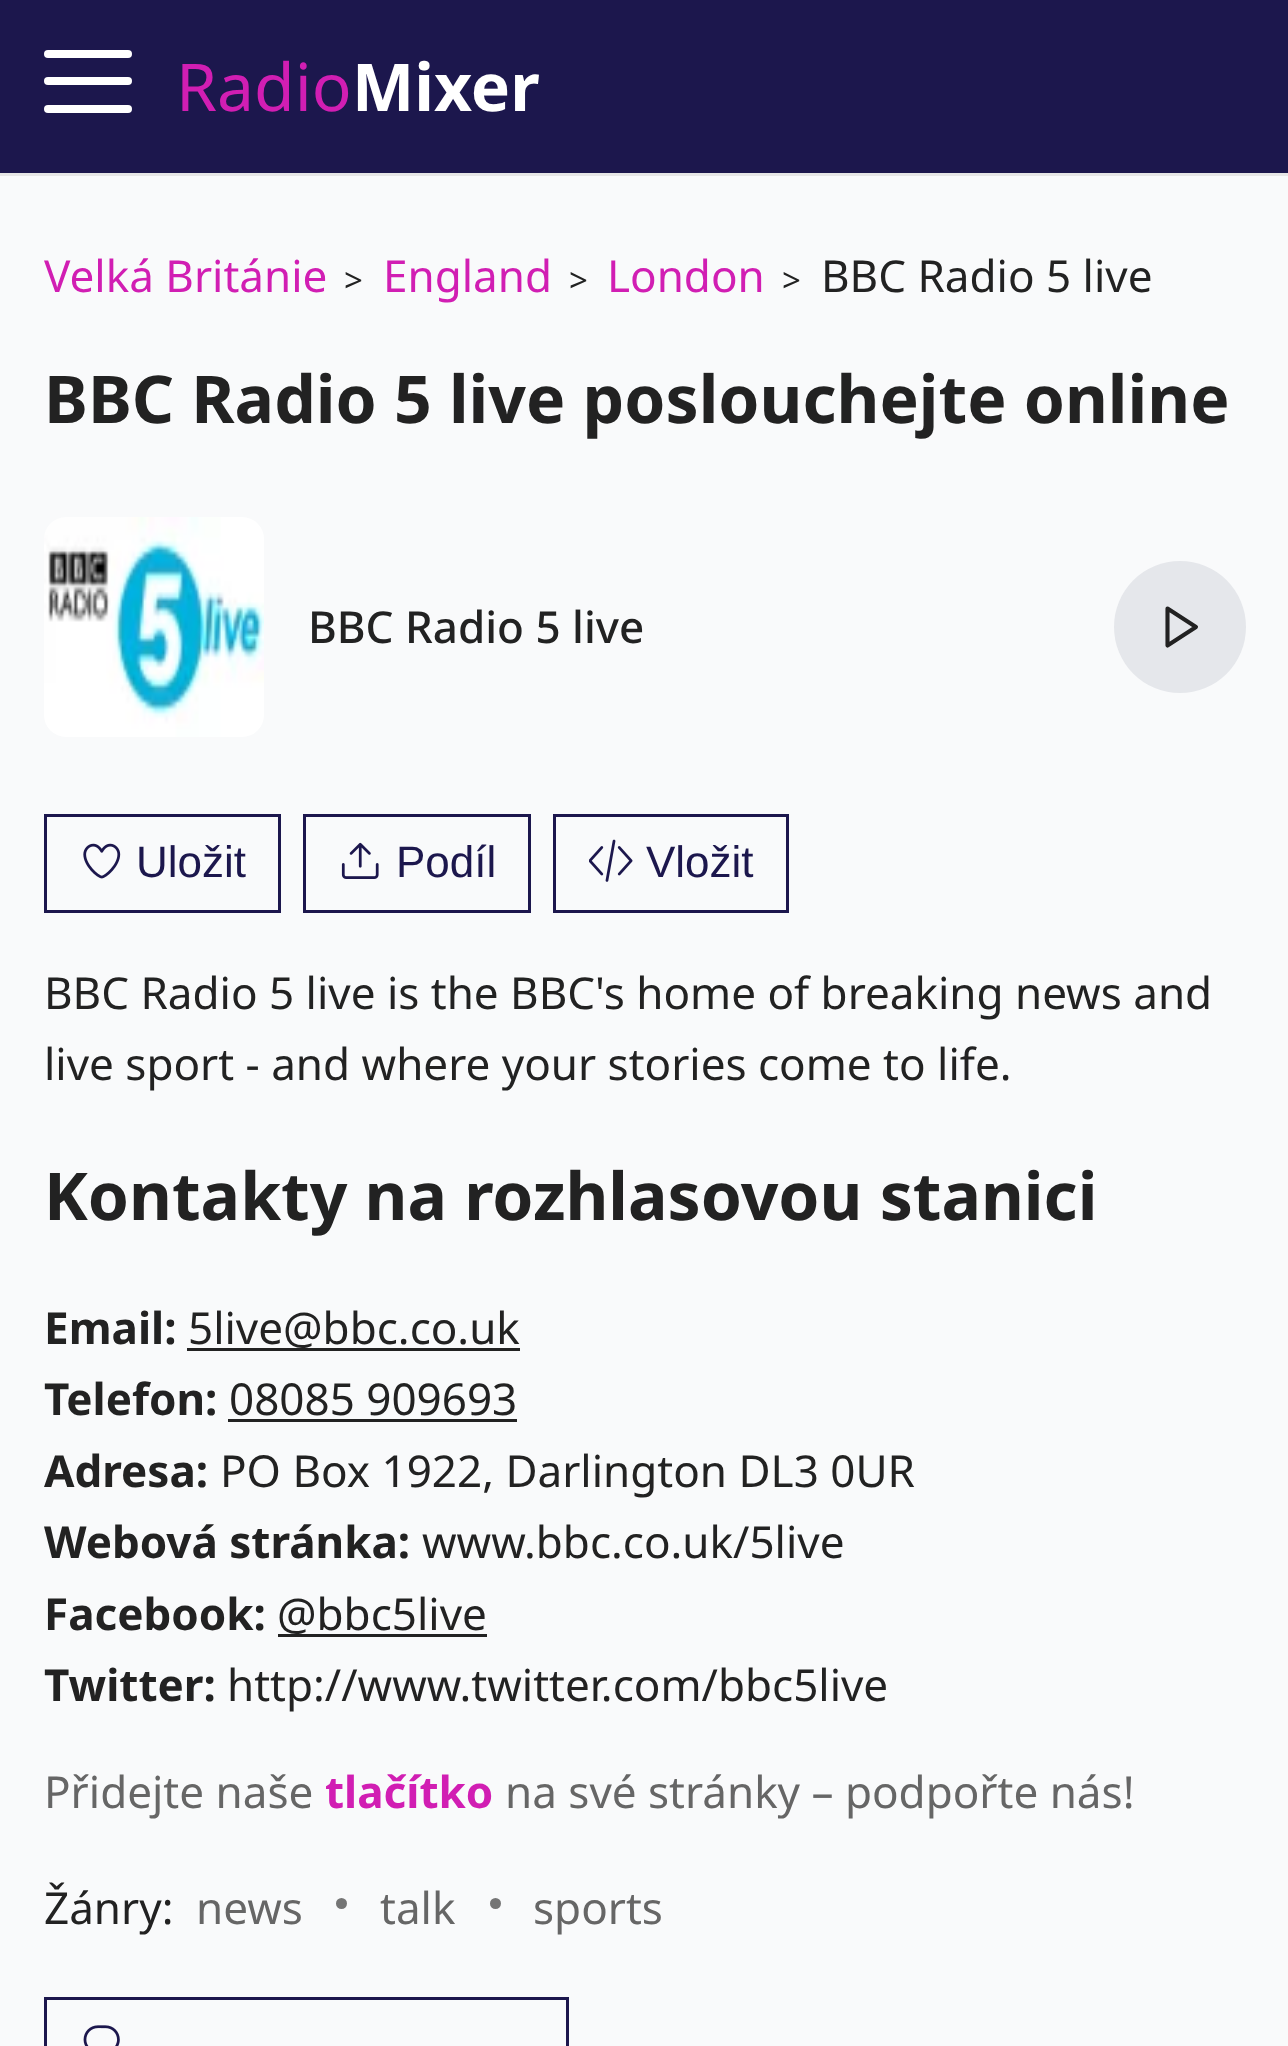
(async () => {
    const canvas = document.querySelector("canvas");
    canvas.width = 1288;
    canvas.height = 2046;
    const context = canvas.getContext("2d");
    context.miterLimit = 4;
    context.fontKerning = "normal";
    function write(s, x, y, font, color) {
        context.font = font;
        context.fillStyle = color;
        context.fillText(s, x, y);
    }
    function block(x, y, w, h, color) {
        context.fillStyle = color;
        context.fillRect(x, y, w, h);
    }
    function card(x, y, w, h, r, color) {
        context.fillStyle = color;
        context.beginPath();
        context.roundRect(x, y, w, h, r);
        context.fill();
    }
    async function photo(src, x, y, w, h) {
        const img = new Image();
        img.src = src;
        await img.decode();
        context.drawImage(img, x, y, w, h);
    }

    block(0, 0, 1288, 2046, "rgb(249, 250, 251)");
    block(0, 0, 1288, 173, "rgb(28, 23, 77)");
    block(0, 173, 1288, 3, "rgb(230, 230, 230)");
    card(44, 77, 88, 8, 4, "rgb(255, 255, 255)");
    card(44, 50, 88, 8, 4, "rgb(255, 255, 255)");
    card(44, 105, 88, 8, 4, "rgb(255, 255, 255)");
    write("Radio", 176, 111, "66px Noto Sans", "rgb(209, 30, 179)");
    write("Mixer", 352, 111, "bold 66px Noto Sans", "rgb(255, 255, 255)");
    write("Velká Británie", 44, 292, "44px Noto Sans", "rgb(209, 30, 179)");
    write(">", 344, 292, "33px Noto Sans", "rgb(34, 34, 34)");
    write("England", 383, 292, "44px Noto Sans", "rgb(209, 30, 179)");
    write(">", 569, 292, "33px Noto Sans", "rgb(34, 34, 34)");
    write("London", 607, 292, "44px Noto Sans", "rgb(209, 30, 179)");
    write(">", 782, 292, "33px Noto Sans", "rgb(34, 34, 34)");
    write("BBC Radio 5 live", 821, 292, "44px Noto Sans", "rgb(34, 34, 34)");
    write("BBC Radio 5 live poslouchejte online", 44, 423, "bold 66px Noto Sans", "rgb(34, 34, 34)");
    await photo("media/1.png", 44, 517, 220, 220);
    write("BBC Radio 5 live", 308, 643, "500 44px Noto Sans", "rgb(34, 34, 34)");
    context.fillStyle = "rgb(229, 231, 235)";
    context.beginPath();
    context.arc(1180, 627, 66, 0, Math.PI * 2);
    context.fill();
    context.beginPath();
    context.moveTo(1167.5, 608.5);
    context.lineTo(1196, 627);
    context.lineTo(1167.5, 645.5);
    context.closePath();
    context.strokeStyle = "rgb(34, 34, 34)";
    context.lineWidth = 4.1;
    context.lineCap = "round";
    context.lineJoin = "round";
    context.stroke();
    context.strokeStyle = "rgb(28, 23, 77)";
    context.lineWidth = 3;
    context.lineJoin = "miter";
    context.strokeRect(45.5, 815.5, 234, 96);
    await photo("media/2.png", 83, 843, 38, 36);
    write("Uložit", 136, 877, "44px Liberation Sans", "rgb(28, 23, 77)");
    context.strokeRect(304.5, 815.5, 225, 96);
    await photo("media/3.png", 341, 842, 38, 37);
    write("Podíl", 396, 877, "44px Liberation Sans", "rgb(28, 23, 77)");
    context.strokeRect(554.5, 815.5, 233, 96);
    await photo("media/4.png", 589, 839, 44, 43);
    write("Vložit", 646, 877, "44px Liberation Sans", "rgb(28, 23, 77)");
    write("BBC Radio 5 live is the BBC's home of breaking news and", 44, 1009, "44px Noto Sans", "rgb(34, 34, 34)");
    write("live sport - and where your stories come to life.", 44, 1080, "44px Noto Sans", "rgb(34, 34, 34)");
    write("Kontakty na rozhlasovou stanici", 44, 1220, "bold 66px Noto Sans", "rgb(34, 34, 34)");
    write("Email:", 44, 1344, "bold 44px Noto Sans", "rgb(34, 34, 34)");
    write("5live@bbc.co.uk", 188, 1344, "44px Noto Sans", "rgb(34, 34, 34)");
    block(187, 1348, 333, 3, "rgb(34, 34, 34)");
    write("Telefon:", 44, 1415, "bold 44px Noto Sans", "rgb(34, 34, 34)");
    write("08085 909693", 229, 1415, "44px Noto Sans", "rgb(34, 34, 34)");
    block(228, 1419, 289, 3, "rgb(34, 34, 34)");
    write("Adresa:", 44, 1487, "bold 44px Noto Sans", "rgb(34, 34, 34)");
    write("PO Box 1922, Darlington DL3 0UR", 220, 1487, "44px Noto Sans", "rgb(34, 34, 34)");
    write("Webová stránka:", 44, 1558, "bold 44px Noto Sans", "rgb(34, 34, 34)");
    write("www.bbc.co.uk/5live", 422, 1558, "44px Noto Sans", "rgb(34, 34, 34)");
    write("Facebook:", 44, 1630, "bold 44px Noto Sans", "rgb(34, 34, 34)");
    write("@bbc5live", 277, 1630, "44px Noto Sans", "rgb(34, 34, 34)");
    block(278, 1634, 209, 3, "rgb(34, 34, 34)");
    write("Twitter:", 44, 1701, "bold 44px Noto Sans", "rgb(34, 34, 34)");
    write("http://www.twitter.com/bbc5live", 227, 1701, "44px Noto Sans", "rgb(34, 34, 34)");
    write("Přidejte naše", 44, 1808, "44px Noto Sans", "rgb(102, 102, 102)");
    write("tlačítko", 325, 1808, "bold 44px Noto Sans", "rgb(209, 30, 179)");
    write("na své stránky – podpořte nás!", 505, 1808, "44px Noto Sans", "rgb(102, 102, 102)");
    write("Žánry:", 44, 1924, "44px Noto Sans", "rgb(34, 34, 34)");
    write("news", 196, 1924, "44px Noto Sans", "rgb(102, 102, 102)");
    context.fillStyle = "rgb(117, 117, 117)";
    context.beginPath();
    context.arc(341.5, 1903.5, 5.5, 0, Math.PI * 2);
    context.fill();
    write("talk", 380, 1924, "44px Noto Sans", "rgb(102, 102, 102)");
    context.fillStyle = "rgb(117, 117, 117)";
    context.beginPath();
    context.arc(495.5, 1903.5, 5.5, 0, Math.PI * 2);
    context.fill();
    write("sports", 533, 1924, "44px Noto Sans", "rgb(102, 102, 102)");
    context.strokeRect(45.5, 1998.5, 522, 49);
    await photo("media/5.png", 83, 2025, 37, 21);
})();
